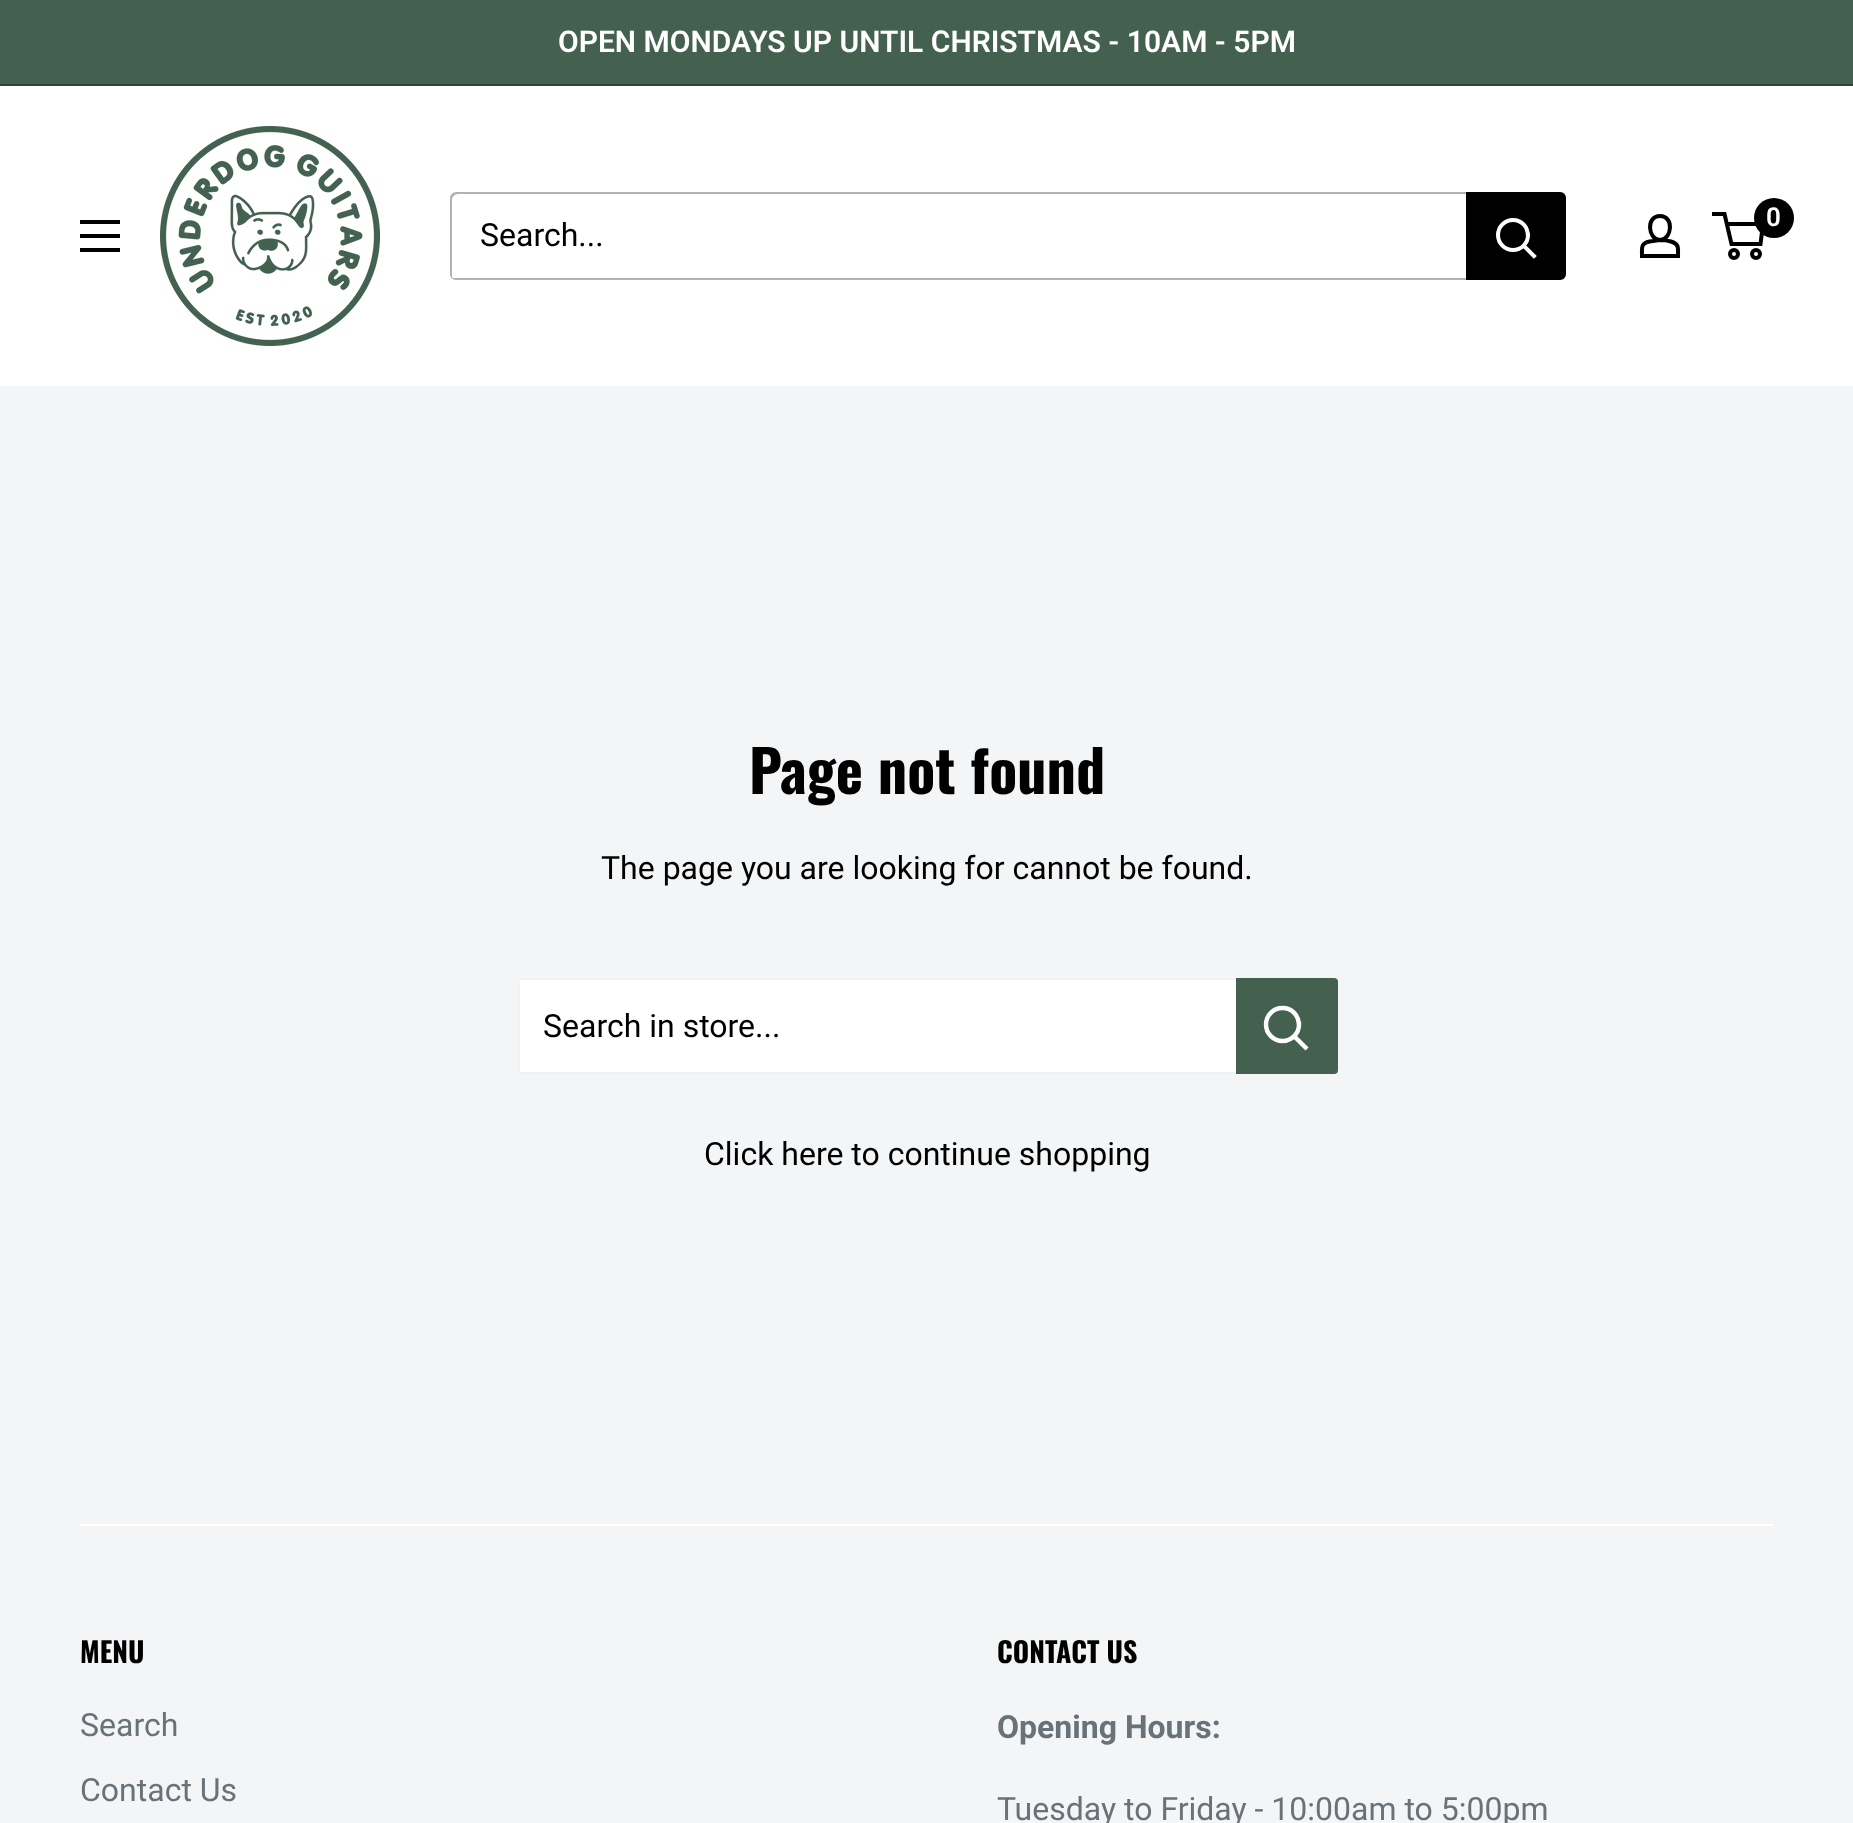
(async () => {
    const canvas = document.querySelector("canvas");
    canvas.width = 1853;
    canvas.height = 1823;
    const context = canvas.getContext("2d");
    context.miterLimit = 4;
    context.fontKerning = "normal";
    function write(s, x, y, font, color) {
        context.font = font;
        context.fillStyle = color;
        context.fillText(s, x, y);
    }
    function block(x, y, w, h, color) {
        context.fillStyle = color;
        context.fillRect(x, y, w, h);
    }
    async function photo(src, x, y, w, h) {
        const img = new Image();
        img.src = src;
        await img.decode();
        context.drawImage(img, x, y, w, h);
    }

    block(0, 0, 1853, 1823, "rgb(243, 245, 246)");
    block(0, 0, 1853, 84, "rgb(68, 96, 79)");
    block(0, 84, 1853, 2, "rgb(48, 67, 55)");
    write("OPEN MONDAYS UP UNTIL CHRISTMAS - 10AM - 5PM", 558, 52, "600 30px Roboto", "rgb(255, 255, 255)");
    block(0, 86, 1853, 300, "rgb(255, 255, 255)");
    await photo("media/1.png", 160, 126, 220, 220);
    context.beginPath();
    context.moveTo(1660, 240);
    context.bezierCurveTo(1664, 240, 1667.5, 240.5, 1671, 241.5);
    context.bezierCurveTo(1679.5, 244, 1678, 248.5, 1678, 256);
    context.lineTo(1642, 256);
    context.bezierCurveTo(1642, 248, 1640.5, 243.5, 1649.5, 241.5);
    context.closePath();
    context.moveTo(1660, 240);
    context.bezierCurveTo(1648, 240, 1645.5, 216, 1660, 216);
    context.bezierCurveTo(1674.5, 216, 1672, 240, 1660, 240);
    context.closePath();
    context.strokeStyle = "rgb(0, 0, 0)";
    context.lineWidth = 4;
    context.stroke();
    context.beginPath();
    context.arc(1734, 254, 4, 0, Math.PI * 2);
    context.stroke();
    context.beginPath();
    context.arc(1756, 254, 4, 0, Math.PI * 2);
    context.stroke();
    context.beginPath();
    context.moveTo(1726.5, 224);
    context.lineTo(1763, 224);
    context.lineTo(1760.5, 244);
    context.lineTo(1731.5, 244);
    context.lineTo(1724.5, 214);
    context.lineTo(1712, 214);
    context.stroke();
    context.fillStyle = "rgb(0, 0, 0)";
    context.beginPath();
    context.arc(1774, 218, 20, 0, Math.PI * 2);
    context.fill();
    write("0", 1766, 226, "600 26px Roboto", "rgb(255, 255, 255)");
    context.fillStyle = "rgb(0, 0, 0)";
    context.beginPath();
    context.moveTo(80, 248);
    context.lineTo(120, 248);
    context.lineTo(120, 252);
    context.lineTo(80, 252);
    context.closePath();
    context.moveTo(80, 220);
    context.lineTo(120, 220);
    context.lineTo(120, 224);
    context.lineTo(80, 224);
    context.closePath();
    context.moveTo(80, 234);
    context.lineTo(120, 234);
    context.lineTo(120, 238);
    context.lineTo(80, 238);
    context.closePath();
    context.fill("evenodd");
    context.fillStyle = "rgb(179, 179, 179)";
    context.beginPath();
    context.moveTo(451, 277);
    context.bezierCurveTo(452, 279, 454, 280, 456, 280);
    context.lineTo(1560, 280);
    context.bezierCurveTo(1563, 280, 1566, 277, 1566, 274);
    context.lineTo(1566, 198);
    context.bezierCurveTo(1566, 196, 1565, 194, 1563, 193);
    context.bezierCurveTo(1564, 194, 1564, 195, 1564, 196);
    context.lineTo(1564, 272);
    context.bezierCurveTo(1564, 275, 1561, 278, 1558, 278);
    context.lineTo(454, 278);
    context.bezierCurveTo(453, 278, 452, 278, 451, 277);
    context.closePath();
    context.fill();
    context.fillStyle = "rgba(0, 0, 0, 0.3)";
    context.beginPath();
    context.moveTo(458, 194);
    context.lineTo(1562, 194);
    context.lineTo(1565, 195);
    context.bezierCurveTo(1564, 193, 1562, 192, 1560, 192);
    context.lineTo(456, 192);
    context.bezierCurveTo(453, 192, 450, 195, 450, 198);
    context.lineTo(450, 274);
    context.bezierCurveTo(450, 276, 451, 278, 453, 279);
    context.bezierCurveTo(452, 278, 452, 277, 452, 276);
    context.lineTo(452, 200);
    context.bezierCurveTo(452, 197, 455, 194, 458, 194);
    context.closePath();
    context.fill();
    write("Search...", 480, 246, "32px Roboto", "rgb(0, 0, 0)");
    context.beginPath();
    context.roundRect(1466, 192, 100, 88, [0, 6, 6, 0]);
    context.fill();
    context.beginPath();
    context.moveTo(1534, 256);
    context.lineTo(1524, 246);
    context.strokeStyle = "rgb(255, 255, 255)";
    context.lineCap = "square";
    context.stroke();
    context.beginPath();
    context.arc(1513, 235, 15, 0, Math.PI * 2);
    context.stroke();
    write("Page not found", 749, 794, "bold 58px Oswald", "rgb(0, 0, 0)");
    write("The page you are looking for cannot be found.", 601, 879, "32px Roboto", "rgb(0, 0, 0)");
    context.fillStyle = "rgb(255, 255, 255)";
    context.beginPath();
    context.roundRect(518, 978, 718, 96, [4, 0, 0, 4]);
    context.fill();
    block(520, 978, 716, 2, "rgb(242, 242, 242)");
    block(520, 1072, 716, 2, "rgb(242, 242, 242)");
    block(518, 980, 2, 92, "rgb(242, 242, 242)");
    write("Search in store...", 543, 1037, "32px Roboto", "rgb(0, 0, 0)");
    context.fillStyle = "rgb(68, 96, 79)";
    context.beginPath();
    context.roundRect(1236, 978, 102, 96, [0, 4, 4, 0]);
    context.fill();
    context.beginPath();
    context.moveTo(1305.5, 1047.5);
    context.lineTo(1294.5, 1036.5);
    context.lineWidth = 4.4;
    context.stroke();
    context.beginPath();
    context.arc(1282.5, 1024.5, 16.5, 0, Math.PI * 2);
    context.stroke();
    write("Click here to continue shopping", 704, 1165, "32px Roboto", "rgb(0, 0, 0)");
    block(80, 1524, 1694, 2, "rgb(255, 255, 255)");
    write("MENU", 80, 1663, "bold 28px Oswald", "rgb(0, 0, 0)");
    write("Search", 80, 1736, "32px Roboto", "rgb(103, 114, 121)");
    write("Contact Us", 80, 1801, "32px Roboto", "rgb(103, 114, 121)");
    write("CONTACT US", 997, 1663, "bold 28px Oswald", "rgb(0, 0, 0)");
    write("Opening Hours:", 997, 1738, "bold 32px Roboto", "rgb(103, 114, 121)");
    write("Tuesday to Friday - 10:00am to 5:00pm", 997, 1820, "32px Roboto", "rgb(103, 114, 121)");
})();
